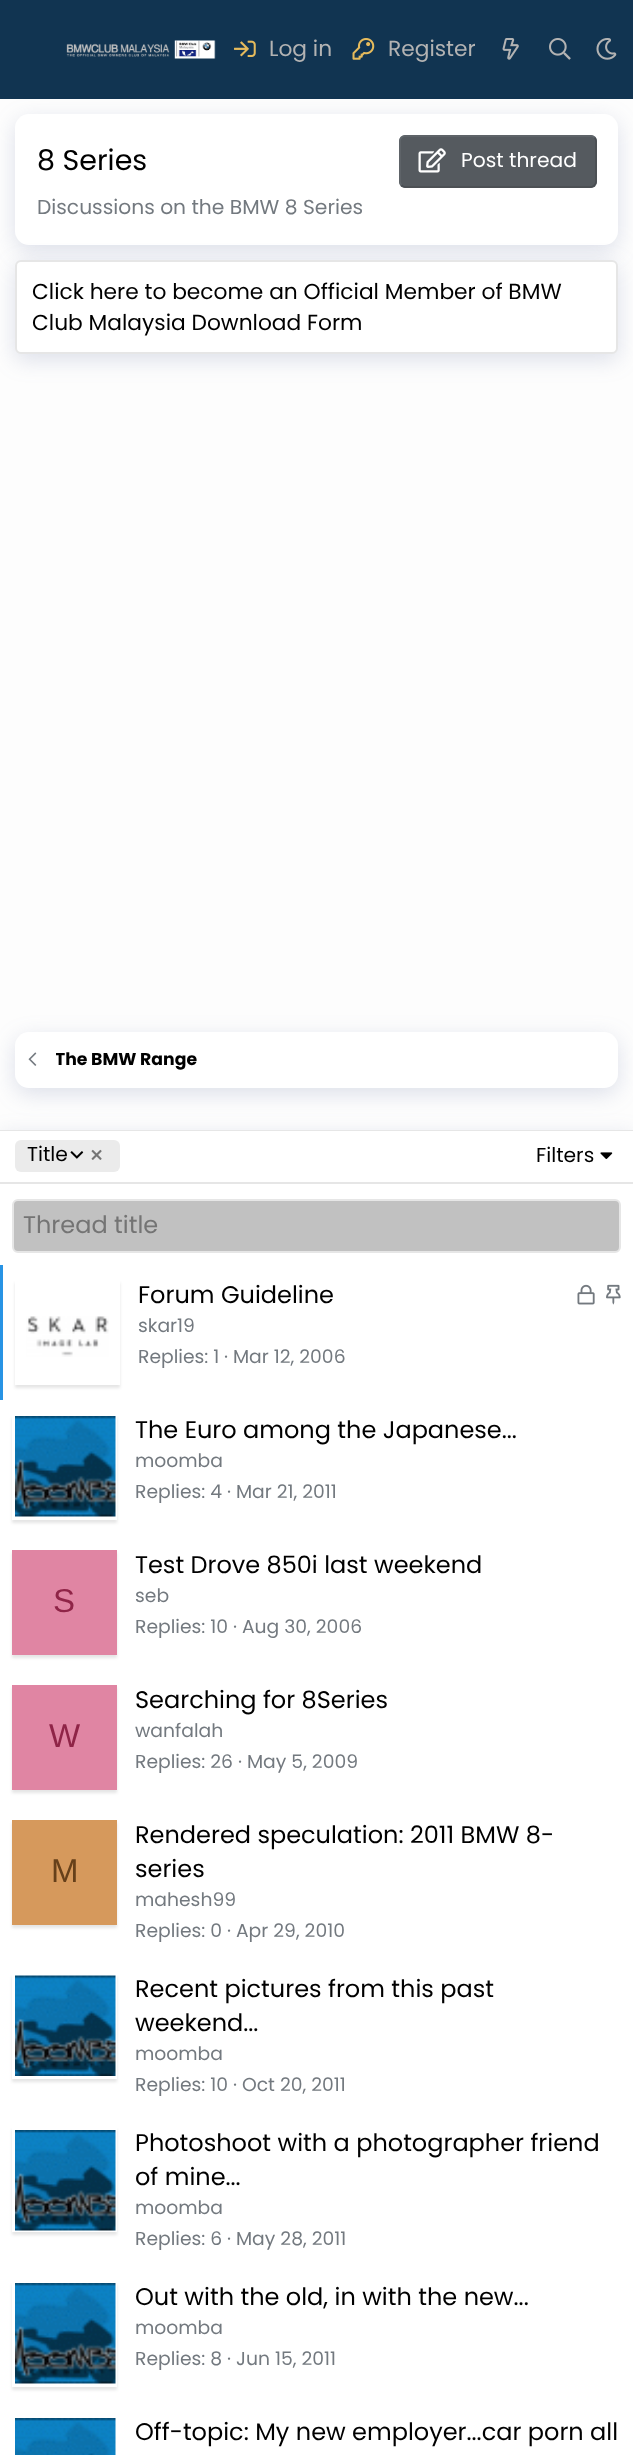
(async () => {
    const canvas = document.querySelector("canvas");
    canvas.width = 633;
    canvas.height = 2455;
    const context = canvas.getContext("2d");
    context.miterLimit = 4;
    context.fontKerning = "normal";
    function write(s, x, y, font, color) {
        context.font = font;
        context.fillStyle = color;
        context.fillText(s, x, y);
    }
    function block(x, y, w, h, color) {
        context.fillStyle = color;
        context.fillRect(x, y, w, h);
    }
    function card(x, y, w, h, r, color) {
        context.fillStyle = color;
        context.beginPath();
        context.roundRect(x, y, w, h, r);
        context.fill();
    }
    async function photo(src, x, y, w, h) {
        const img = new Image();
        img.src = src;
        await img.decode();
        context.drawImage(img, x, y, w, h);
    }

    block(0, 0, 633, 2455, "rgb(253, 253, 253)");
    block(0, 0, 633, 99, "rgb(17, 52, 81)");
    await photo("media/1.png", 66, 40, 150, 19);
    await photo("media/2.png", 234, 40, 22, 17);
    write("Log in", 269, 56, "21.75px Poppins", "rgb(179, 179, 179)");
    await photo("media/3.png", 352, 38, 23, 22);
    write("Register", 388, 56, "21.75px Poppins", "rgb(179, 179, 179)");
    await photo("media/4.png", 502, 38, 17, 22);
    await photo("media/5.png", 549, 38, 22, 22);
    await photo("media/6.png", 596, 38, 21, 22);
    context.fillStyle = "rgba(88, 106, 153, 0.2)";
    context.filter = "blur(11px)";
    context.beginPath();
    context.roundRect(15, 120, 603, 131, 14);
    context.fill();
    context.filter = "none";
    card(15, 114, 603, 131, 14, "rgb(255, 255, 255)");
    write("8 Series", 37, 170, "28.5px Poppins", "rgb(0, 0, 0)");
    card(399, 135, 198, 53, 6, "rgb(85, 90, 95)");
    context.beginPath();
    context.moveTo(594.5, 137.5);
    context.bezierCurveTo(595.5, 138.5, 596, 139.5, 596, 141);
    context.lineTo(596, 181.5);
    context.bezierCurveTo(596, 183, 595.5, 184, 594.5, 185);
    context.bezierCurveTo(593.5, 186, 592.5, 187, 591, 187);
    context.lineTo(405, 187);
    context.bezierCurveTo(403.5, 187, 402.5, 186, 401.5, 185);
    context.strokeStyle = "rgb(73, 77, 82)";
    context.lineWidth = 1.5;
    context.stroke();
    context.beginPath();
    context.moveTo(401.5, 185);
    context.bezierCurveTo(400.5, 184, 400, 183, 400, 181.5);
    context.lineTo(400, 141);
    context.bezierCurveTo(400, 139.5, 400.5, 138.5, 401.5, 137.5);
    context.bezierCurveTo(402.5, 136.5, 403.5, 136, 405, 136);
    context.lineTo(591, 136);
    context.bezierCurveTo(592.5, 136, 593.5, 136.5, 594.5, 137.5);
    context.strokeStyle = "rgb(97, 103, 108)";
    context.stroke();
    await photo("media/7.png", 418, 148, 28, 25);
    write("Post thread", 461, 167, "20.25px Poppins", "rgb(255, 255, 255)");
    write("Discussions on the BMW 8 Series", 37, 214, "20.25px Poppins", "rgb(115, 121, 127)");
    context.fillStyle = "rgba(88, 106, 153, 0.2)";
    context.filter = "blur(11px)";
    context.beginPath();
    context.roundRect(15, 266, 603, 94, 6);
    context.fill();
    context.filter = "none";
    context.fillStyle = "rgb(255, 255, 255)";
    context.beginPath();
    context.roundRect(16, 261, 601, 92, 5);
    context.fill();
    context.strokeStyle = "rgb(230, 230, 230)";
    context.lineWidth = 2;
    context.stroke();
    write("Click here to become an Official Member of BMW", 32, 299, "21.75px Poppins", "rgb(0, 0, 0)");
    write("Club Malaysia Download Form", 32, 330, "21.75px Poppins", "rgb(0, 0, 0)");
    context.fillStyle = "rgba(88, 106, 153, 0.2)";
    context.filter = "blur(11px)";
    context.beginPath();
    context.roundRect(15, 1038, 603, 56, 14);
    context.fill();
    context.filter = "none";
    card(15, 1032, 603, 56, 14, "rgb(255, 255, 255)");
    await photo("media/8.png", 28, 1052, 9, 14);
    context.save();
    context.beginPath();
    context.rect(56, 1047, 141, 26);
    context.clip();
    write("The BMW Range", 55, 1065, "bold 17.25px Poppins", "rgb(0, 0, 0)");
    context.restore();
    context.fillStyle = "rgba(88, 106, 153, 0.2)";
    context.filter = "blur(11px)";
    context.beginPath();
    context.rect(0, 1136, 633, 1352);
    context.fill();
    context.filter = "none";
    block(0, 1184, 633, 1271, "rgb(255, 255, 255)");
    block(0, 1130, 633, 1, "rgb(230, 230, 230)");
    block(0, 1131, 633, 51, "rgb(255, 255, 255)");
    block(0, 1182, 633, 2, "rgb(230, 230, 230)");
    card(15, 1140, 105, 32, 6, "rgb(235, 235, 235)");
    write("Title", 27, 1161, "20.25px Poppins", "rgb(0, 0, 0)");
    await photo("media/9.png", 70, 1151, 14, 8);
    await photo("media/10.png", 91, 1149, 11, 11);
    write("Filters", 536, 1162, "20.25px Poppins", "rgb(0, 0, 0)");
    await photo("media/11.png", 600, 1152, 13, 7);
    context.fillStyle = "rgb(193, 193, 193)";
    context.beginPath();
    context.roundRect(13, 1200, 607, 52, 5);
    context.fill();
    context.stroke();
    write("Thread title", 23, 1233, "24px Poppins", "rgb(116, 116, 116)");
    block(0, 1265, 3, 135, "rgb(40, 147, 228)");
    context.save();
    context.beginPath();
    context.moveTo(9, 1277);
    context.lineTo(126, 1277);
    context.lineTo(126, 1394);
    context.lineTo(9, 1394);
    context.closePath();
    context.moveTo(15, 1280);
    context.lineTo(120, 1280);
    context.lineTo(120, 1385);
    context.lineTo(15, 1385);
    context.closePath();
    context.clip("evenodd");
    context.fillStyle = "rgba(0, 0, 0, 0.1)";
    context.filter = "blur(1.5px)";
    context.beginPath();
    context.rect(15, 1283, 105, 105);
    context.fill();
    context.filter = "none";
    context.restore();
    await photo("media/12.png", 26, 1316, 83, 41);
    write("Forum Guideline", 138, 1303, "24px Poppins", "rgb(0, 0, 0)");
    await photo("media/13.png", 577, 1284, 18, 21);
    await photo("media/14.png", 606, 1284, 15, 21);
    write("skar19", 138, 1332, "18.75px Poppins", "rgb(115, 121, 127)");
    write("Replies: 1", 138, 1363, "18.75px Poppins", "rgb(115, 121, 127)");
    write("· Mar 12, 2006", 224, 1363, "18.75px Poppins", "rgb(115, 121, 127)");
    context.save();
    context.beginPath();
    context.moveTo(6, 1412);
    context.lineTo(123, 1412);
    context.lineTo(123, 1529);
    context.lineTo(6, 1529);
    context.closePath();
    context.moveTo(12, 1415);
    context.lineTo(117, 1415);
    context.lineTo(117, 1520);
    context.lineTo(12, 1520);
    context.closePath();
    context.clip("evenodd");
    context.fillStyle = "rgba(0, 0, 0, 0.1)";
    context.filter = "blur(1.5px)";
    context.beginPath();
    context.rect(12, 1418, 105, 105);
    context.fill();
    context.filter = "none";
    context.restore();
    await photo("media/15.png", 15, 1416, 101, 101);
    write("The Euro among the Japanese...", 135, 1438, "24px Poppins", "rgb(0, 0, 0)");
    write("moomba", 135, 1467, "18.75px Poppins", "rgb(115, 121, 127)");
    write("Replies: 4", 135, 1498, "18.75px Poppins", "rgb(115, 121, 127)");
    write("· Mar 21, 2011", 227, 1498, "18.75px Poppins", "rgb(115, 121, 127)");
    context.fillStyle = "rgba(0, 0, 0, 0.1)";
    context.filter = "blur(1.5px)";
    context.beginPath();
    context.rect(12, 1553, 105, 105);
    context.fill();
    context.filter = "none";
    block(12, 1550, 105, 105, "rgb(224, 133, 163)");
    write("S", 53, 1612, "33px Liberation Sans", "rgb(143, 36, 71)");
    write("Test Drove 850i last weekend", 135, 1573, "24px Poppins", "rgb(0, 0, 0)");
    write("seb", 135, 1602, "18.75px Poppins", "rgb(115, 121, 127)");
    write("Replies: 10", 135, 1633, "18.75px Poppins", "rgb(115, 121, 127)");
    write("· Aug 30, 2006", 233, 1633, "18.75px Poppins", "rgb(115, 121, 127)");
    context.fillStyle = "rgba(0, 0, 0, 0.1)";
    context.filter = "blur(1.5px)";
    context.beginPath();
    context.rect(12, 1688, 105, 105);
    context.fill();
    context.filter = "none";
    block(12, 1685, 105, 105, "rgb(224, 133, 163)");
    write("W", 49, 1747, "33px Liberation Sans", "rgb(143, 36, 71)");
    write("Searching for 8Series", 135, 1708, "24px Poppins", "rgb(0, 0, 0)");
    write("wanfalah", 135, 1737, "18.75px Poppins", "rgb(115, 121, 127)");
    write("Replies: 26", 135, 1768, "18.75px Poppins", "rgb(115, 121, 127)");
    write("· May 5, 2009", 238, 1768, "18.75px Poppins", "rgb(115, 121, 127)");
    context.fillStyle = "rgba(0, 0, 0, 0.1)";
    context.filter = "blur(1.5px)";
    context.beginPath();
    context.rect(12, 1823, 105, 105);
    context.fill();
    context.filter = "none";
    block(12, 1820, 105, 105, "rgb(214, 153, 92)");
    write("M", 51, 1882, "33px Liberation Sans", "rgb(102, 64, 26)");
    write("Rendered speculation: 2011 BMW 8-", 135, 1843, "24px Poppins", "rgb(0, 0, 0)");
    write("series", 135, 1877, "24px Poppins", "rgb(0, 0, 0)");
    write("mahesh99", 135, 1906, "18.75px Poppins", "rgb(115, 121, 127)");
    write("Replies: 0", 135, 1937, "18.75px Poppins", "rgb(115, 121, 127)");
    write("· Apr 29, 2010", 227, 1937, "18.75px Poppins", "rgb(115, 121, 127)");
    context.save();
    context.beginPath();
    context.moveTo(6, 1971);
    context.lineTo(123, 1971);
    context.lineTo(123, 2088);
    context.lineTo(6, 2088);
    context.closePath();
    context.moveTo(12, 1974);
    context.lineTo(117, 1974);
    context.lineTo(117, 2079);
    context.lineTo(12, 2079);
    context.closePath();
    context.clip("evenodd");
    context.fillStyle = "rgba(0, 0, 0, 0.1)";
    context.filter = "blur(1.5px)";
    context.beginPath();
    context.rect(12, 1977, 105, 105);
    context.fill();
    context.filter = "none";
    context.restore();
    await photo("media/16.png", 15, 1975, 101, 101);
    write("Recent pictures from this past", 135, 1997, "24px Poppins", "rgb(0, 0, 0)");
    write("weekend...", 135, 2031, "24px Poppins", "rgb(0, 0, 0)");
    write("moomba", 135, 2060, "18.75px Poppins", "rgb(115, 121, 127)");
    write("Replies: 10", 135, 2091, "18.75px Poppins", "rgb(115, 121, 127)");
    write("· Oct 20, 2011", 233, 2091, "18.75px Poppins", "rgb(115, 121, 127)");
    context.save();
    context.beginPath();
    context.moveTo(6, 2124);
    context.lineTo(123, 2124);
    context.lineTo(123, 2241);
    context.lineTo(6, 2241);
    context.closePath();
    context.moveTo(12, 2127);
    context.lineTo(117, 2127);
    context.lineTo(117, 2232);
    context.lineTo(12, 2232);
    context.closePath();
    context.clip("evenodd");
    context.fillStyle = "rgba(0, 0, 0, 0.1)";
    context.filter = "blur(1.5px)";
    context.beginPath();
    context.rect(12, 2130, 105, 105);
    context.fill();
    context.filter = "none";
    context.restore();
    await photo("media/15.png", 15, 2130, 101, 101);
    write("Photoshoot with a photographer friend", 135, 2151, "24px Poppins", "rgb(0, 0, 0)");
    write("of mine...", 135, 2185, "24px Poppins", "rgb(0, 0, 0)");
    write("moomba", 135, 2214, "18.75px Poppins", "rgb(115, 121, 127)");
    write("Replies: 6", 135, 2245, "18.75px Poppins", "rgb(115, 121, 127)");
    write("· May 28, 2011", 227, 2245, "18.75px Poppins", "rgb(115, 121, 127)");
    context.save();
    context.beginPath();
    context.moveTo(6, 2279);
    context.lineTo(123, 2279);
    context.lineTo(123, 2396);
    context.lineTo(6, 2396);
    context.closePath();
    context.moveTo(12, 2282);
    context.lineTo(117, 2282);
    context.lineTo(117, 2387);
    context.lineTo(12, 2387);
    context.closePath();
    context.clip("evenodd");
    context.fillStyle = "rgba(0, 0, 0, 0.1)";
    context.filter = "blur(1.5px)";
    context.beginPath();
    context.rect(12, 2285, 105, 105);
    context.fill();
    context.filter = "none";
    context.restore();
    await photo("media/17.png", 15, 2283, 101, 101);
    write("Out with the old, in with the new...", 135, 2305, "24px Poppins", "rgb(0, 0, 0)");
    write("moomba", 135, 2334, "18.75px Poppins", "rgb(115, 121, 127)");
    write("Replies: 8", 135, 2365, "18.75px Poppins", "rgb(115, 121, 127)");
    write("· Jun 15, 2011", 227, 2365, "18.75px Poppins", "rgb(115, 121, 127)");
    await photo("media/18.png", 15, 2418, 101, 37);
    write("Off-topic: My new employer...car porn all", 135, 2440, "24px Poppins", "rgb(0, 0, 0)");
})();
